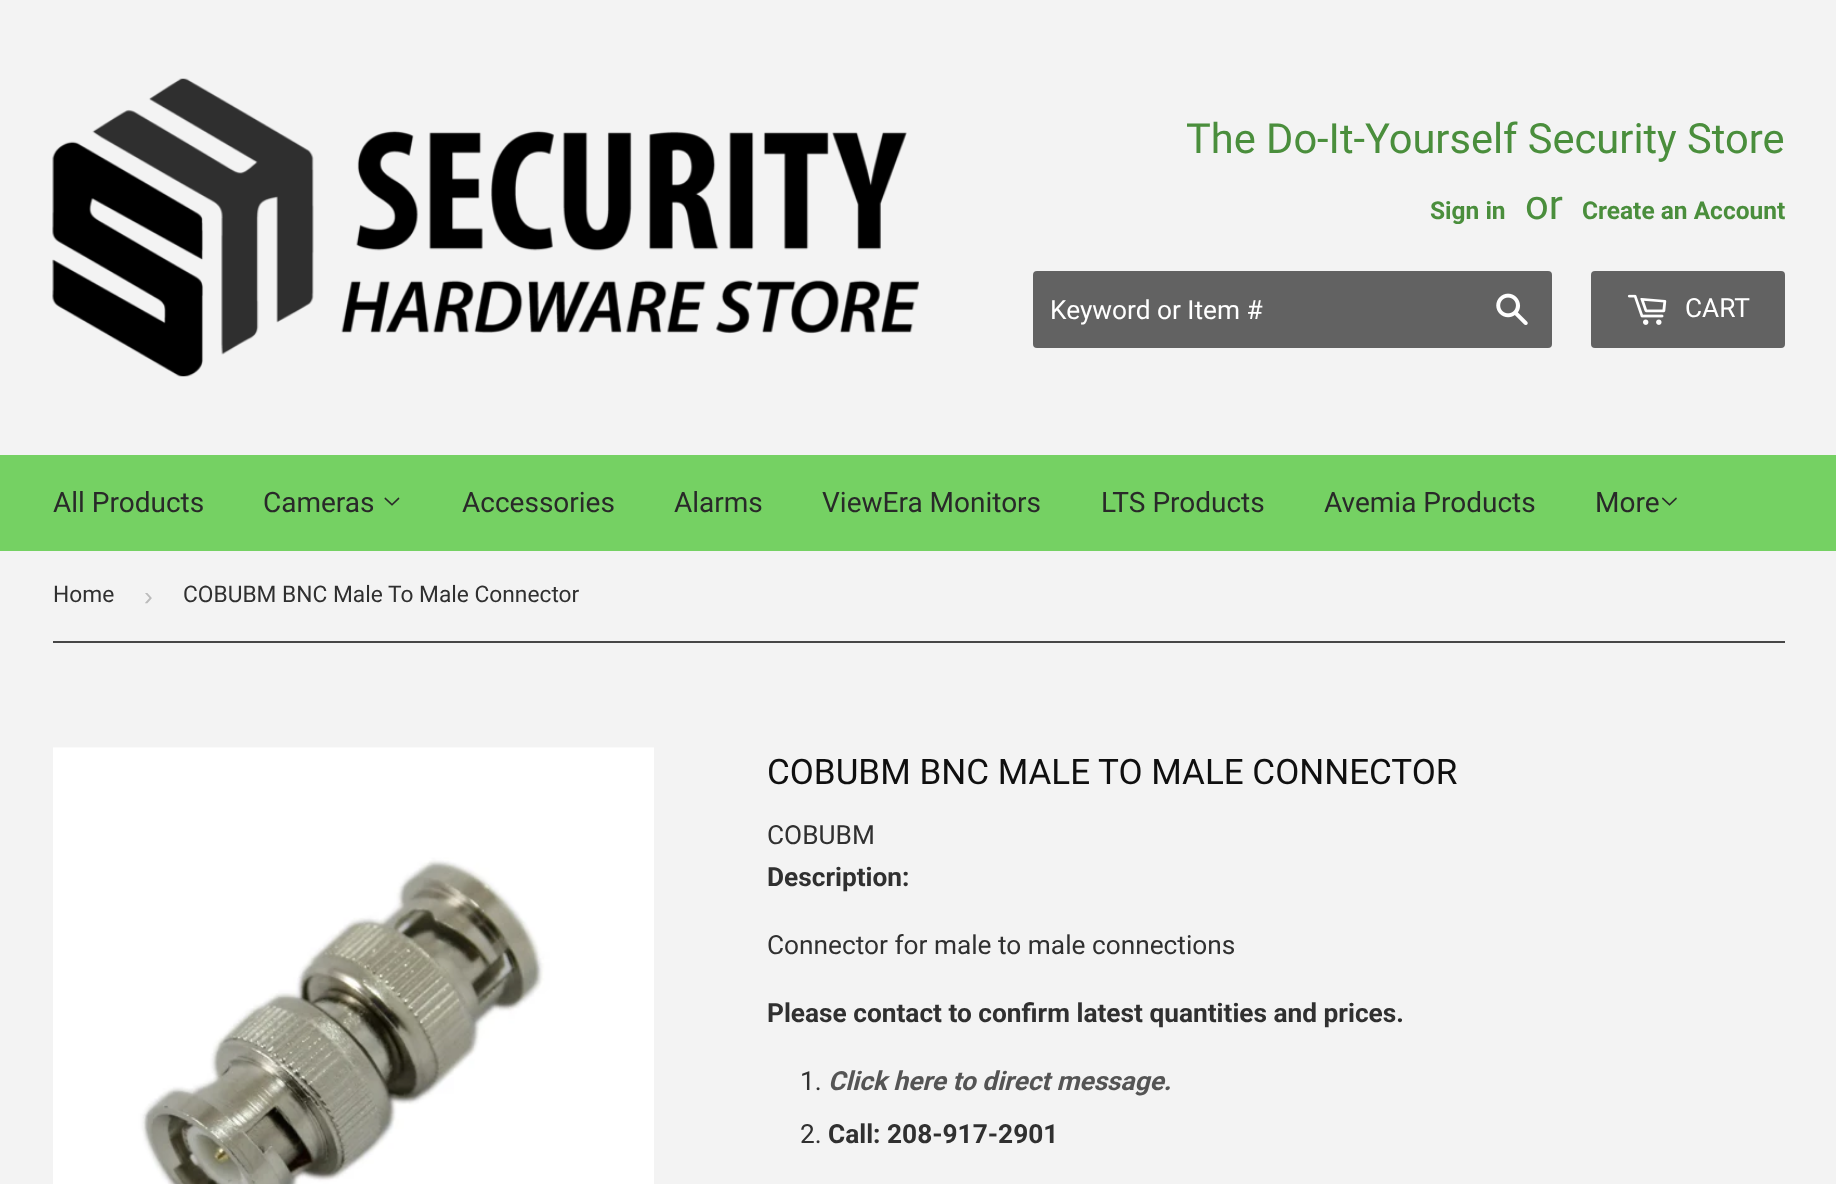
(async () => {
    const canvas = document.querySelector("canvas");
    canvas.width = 1836;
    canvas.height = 1184;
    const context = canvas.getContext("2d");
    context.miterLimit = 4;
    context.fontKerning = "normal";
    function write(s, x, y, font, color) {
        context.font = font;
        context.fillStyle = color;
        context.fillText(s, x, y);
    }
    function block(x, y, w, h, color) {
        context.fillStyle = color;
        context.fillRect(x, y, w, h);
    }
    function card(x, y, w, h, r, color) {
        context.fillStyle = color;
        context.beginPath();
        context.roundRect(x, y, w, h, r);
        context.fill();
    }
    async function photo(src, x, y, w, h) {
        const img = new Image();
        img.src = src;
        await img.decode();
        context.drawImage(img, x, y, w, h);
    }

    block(0, 0, 1836, 1184, "rgb(243, 243, 243)");
    await photo("media/1.png", 52, 78, 867, 299);
    write("The Do-It-Yourself Security Store", 1186, 153, "41.6px Roboto", "rgb(74, 142, 60)");
    write("Sign in", 1430, 219, "bold 24.5px Roboto", "rgb(74, 142, 60)");
    write("or", 1525, 219, "41.6px Roboto", "rgb(74, 142, 60)");
    write("Create an Account", 1582, 219, "bold 24.5px Roboto", "rgb(74, 142, 60)");
    card(1033, 271, 519, 77, 4, "rgb(98, 98, 98)");
    write("Keyword or Item #", 1050, 319, "26.25px Roboto", "rgb(255, 255, 255)");
    await photo("media/2.png", 1496, 293, 32, 32);
    card(1591, 271, 194, 77, 4, "rgb(98, 98, 98)");
    await photo("media/3.png", 1627, 294, 40, 31);
    write("CART", 1685, 317, "26.25px Roboto", "rgb(255, 255, 255)");
    block(0, 455, 1836, 96, "rgb(117, 209, 99)");
    write("All Products", 53, 512, "28px Roboto", "rgb(41, 41, 41)");
    write("Cameras", 263, 512, "28px Roboto", "rgb(41, 41, 41)");
    await photo("media/4.png", 384, 497, 16, 9);
    write("Accessories", 462, 512, "28px Roboto", "rgb(41, 41, 41)");
    write("Alarms", 674, 512, "28px Roboto", "rgb(41, 41, 41)");
    write("ViewEra Monitors", 822, 512, "28px Roboto", "rgb(41, 41, 41)");
    write("LTS Products", 1101, 512, "28px Roboto", "rgb(41, 41, 41)");
    write("Avemia Products", 1324, 512, "28px Roboto", "rgb(41, 41, 41)");
    write("More", 1595, 512, "28px Roboto", "rgb(41, 41, 41)");
    await photo("media/5.png", 1662, 497, 15, 9);
    block(53, 641, 1732, 2, "rgb(70, 70, 70)");
    write("Home", 53, 602, "22.75px Roboto", "rgb(48, 48, 48)");
    write("›", 144, 605, "26.25px Liberation Sans", "rgb(187, 187, 187)");
    write("COBUBM BNC Male To Male Connector", 183, 602, "22.75px Roboto", "rgb(48, 48, 48)");
    await photo("media/6.png", 53, 747, 601, 437);
    write("COBUBM BNC MALE TO MALE CONNECTOR", 767, 784, "35px Roboto", "rgb(15, 15, 15)");
    write("COBUBM", 767, 844, "26.25px Roboto", "rgb(48, 48, 48)");
    write("Description:", 767, 886, "bold 26.25px Roboto", "rgb(48, 48, 48)");
    write("Connector for male to male connections", 767, 954, "26.25px Roboto", "rgb(48, 48, 48)");
    write("Please contact to confirm latest quantities and prices.", 767, 1022, "bold 26.25px Roboto", "rgb(48, 48, 48)");
    write("1.", 800, 1090, "26.25px Roboto", "rgb(48, 48, 48)");
    write("Click here to direct message.", 828, 1090, "italic bold 26.25px Roboto", "rgb(84, 84, 84)");
    write("2.", 800, 1143, "26.25px Roboto", "rgb(48, 48, 48)");
    write("Call: 208-917-2901", 828, 1143, "bold 26.25px Roboto", "rgb(48, 48, 48)");
})();
